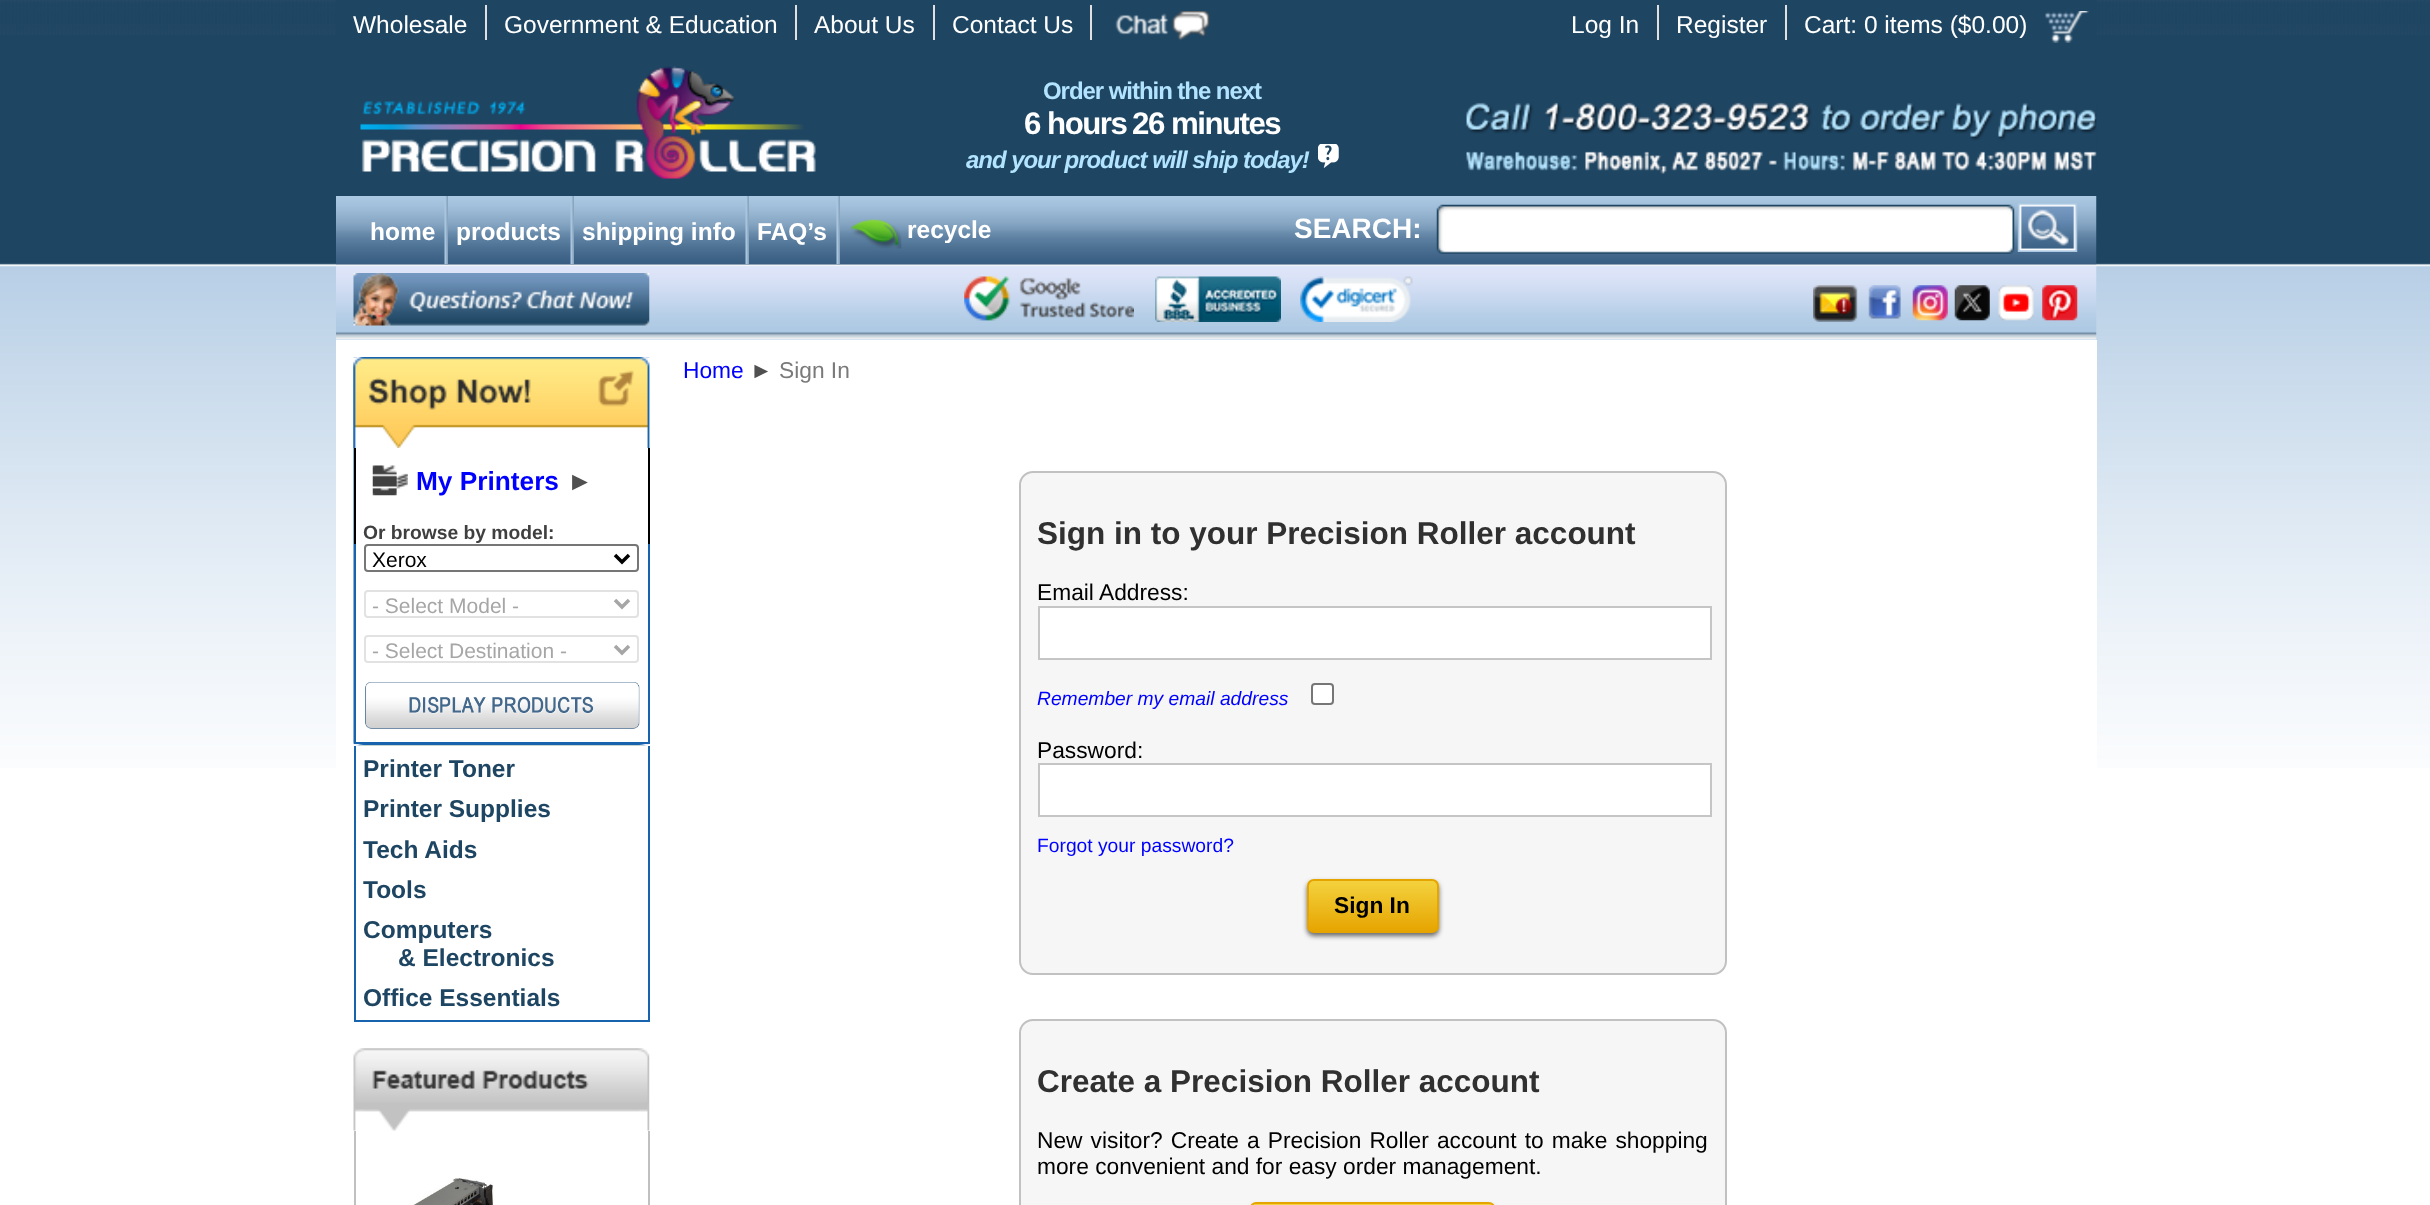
(async () => {
    const canvas = document.querySelector("canvas");
    canvas.width = 2430;
    canvas.height = 1205;
    const context = canvas.getContext("2d");
    context.miterLimit = 4;
    context.fontKerning = "normal";
    function write(s, x, y, font, color) {
        context.font = font;
        context.fillStyle = color;
        context.fillText(s, x, y);
    }
    function block(x, y, w, h, color) {
        context.fillStyle = color;
        context.fillRect(x, y, w, h);
    }
    async function photo(src, x, y, w, h) {
        const img = new Image();
        img.src = src;
        await img.decode();
        context.drawImage(img, x, y, w, h);
    }
    let gradient;

    block(0, 0, 2430, 1205, "rgb(255, 255, 255)");
    await photo("media/1.png", 0, 0, 2430, 49);
    await photo("media/2.png", 0, 49, 2430, 719);
    block(336, 0, 1761, 35, "rgb(30, 69, 98)");
    write("Wholesale", 353, 33, "24.5px Liberation Sans", "rgb(255, 255, 255)");
    block(485, 5, 2, 35, "rgb(224, 224, 224)");
    write("Government & Education", 504, 33, "24.5px Liberation Sans", "rgb(255, 255, 255)");
    block(795, 5, 2, 35, "rgb(224, 224, 224)");
    write("About Us", 814, 33, "24.5px Liberation Sans", "rgb(255, 255, 255)");
    block(933, 5, 2, 35, "rgb(224, 224, 224)");
    write("Contact Us", 952, 33, "24.5px Liberation Sans", "rgb(255, 255, 255)");
    block(1090, 5, 2, 35, "rgb(224, 224, 224)");
    await photo("media/3.png", 1115, 11, 95, 30);
    write("Log In", 1571, 33, "24.5px Liberation Sans", "rgb(255, 255, 255)");
    block(1657, 5, 2, 35, "rgb(224, 224, 224)");
    write("Register", 1676, 33, "24.5px Liberation Sans", "rgb(255, 255, 255)");
    block(1785, 5, 2, 35, "rgb(224, 224, 224)");
    write("Cart: 0 items ($0.00)", 1804, 33, "24.5px Liberation Sans", "rgb(255, 255, 255)");
    await photo("media/4.png", 2045, 11, 44, 32);
    await photo("media/5.png", 360, 66, 456, 113);
    context.letterSpacing = "-1.05px";
    write("Order within the next", 1043, 99, "bold 24px Liberation Sans", "rgb(178, 228, 255)");
    context.letterSpacing = "-1.5px";
    write("6 hours", 1024, 134, "bold 31.25px Liberation Sans", "rgb(255, 255, 255)");
    write("26 minutes", 1132, 134, "bold 31.25px Liberation Sans", "rgb(255, 255, 255)");
    context.letterSpacing = "-1.05px";
    write("and your product will ship today!", 966, 168, "italic bold 24px Liberation Sans", "rgb(178, 228, 255)");
    await photo("media/6.png", 1318, 144, 21, 24);
    await photo("media/7.png", 1466, 102, 631, 72);
    await photo("media/8.png", 336, 196, 1761, 69);
    context.letterSpacing = "0px";
    write("home", 370, 240, "bold 24.5px Liberation Sans", "rgb(255, 255, 255)");
    await photo("media/9.png", 444, 196, 4, 69);
    write("products", 456, 240, "bold 24.5px Liberation Sans", "rgb(255, 255, 255)");
    await photo("media/10.png", 570, 196, 4, 69);
    write("shipping info", 582, 240, "bold 24.5px Liberation Sans", "rgb(255, 255, 255)");
    await photo("media/10.png", 745, 196, 4, 69);
    write("FAQ’s", 757, 240, "bold 24.5px Liberation Sans", "rgb(255, 255, 255)");
    await photo("media/10.png", 836, 196, 4, 69);
    await photo("media/11.png", 850, 219, 52, 30);
    write("recycle", 907, 238, "bold 24.5px Liberation Sans", "rgb(255, 255, 255)");
    write("SEARCH:", 1294, 238, "bold 28px Liberation Sans", "rgb(255, 255, 255)");
    await photo("media/12.png", 1436, 204, 579, 50);
    await photo("media/13.png", 2017, 203, 61, 49);
    await photo("media/14.png", 336, 266, 1761, 74);
    await photo("media/15.png", 353, 273, 297, 53);
    await photo("media/16.png", 964, 276, 170, 45);
    await photo("media/17.png", 1155, 276, 126, 46);
    await photo("media/18.png", 1300, 276, 113, 46);
    await photo("media/19.png", 1813, 285, 45, 37);
    await photo("media/20.png", 1868, 285, 33, 34);
    await photo("media/21.png", 1912, 285, 36, 36);
    await photo("media/22.png", 1954, 285, 36, 36);
    await photo("media/23.png", 1998, 285, 36, 36);
    await photo("media/24.png", 2042, 285, 36, 36);
    block(336, 340, 1761, 428, "rgb(255, 255, 255)");
    await photo("media/25.png", 353, 357, 297, 389);
    await photo("media/26.png", 353, 357, 202, 91);
    await photo("media/27.png", 555, 358, 82, 70);
    await photo("media/28.png", 598, 370, 36, 37);
    await photo("media/29.png", 637, 357, 13, 91);
    block(370, 448, 278, 65, "rgb(255, 255, 255)");
    block(648, 448, 2, 96, "rgb(0, 0, 0)");
    block(354, 448, 2, 96, "rgb(0, 0, 0)");
    await photo("media/30.png", 372, 465, 36, 31);
    write("My Printers", 416, 490, "bold 26.25px Liberation Sans", "rgb(0, 0, 255)");
    write("►", 567, 490, "bold 26.25px Liberation Sans", "rgb(80, 80, 80)");
    block(363, 513, 285, 31, "rgb(255, 255, 255)");
    write("Or browse by model:", 363, 539, "bold 19.25px Liberation Sans", "rgb(63, 63, 63)");
    block(356, 544, 292, 198, "rgb(255, 255, 255)");
    block(648, 544, 2, 200, "rgb(23, 99, 173)");
    block(354, 742, 295, 2, "rgb(23, 99, 173)");
    block(354, 544, 2, 200, "rgb(23, 99, 173)");
    context.beginPath();
    context.roundRect(365, 545, 273, 26, 3);
    context.strokeStyle = "rgb(118, 118, 118)";
    context.lineWidth = 2;
    context.stroke();
    context.beginPath();
    context.moveTo(615, 555);
    context.lineTo(622, 562);
    context.lineTo(629, 555);
    context.strokeStyle = "rgb(0, 0, 0)";
    context.lineWidth = 3.5;
    context.stroke();
    write("Xerox", 372, 567, "21px Liberation Sans", "rgb(0, 0, 0)");
    context.beginPath();
    context.roundRect(365, 591, 273, 26, 3);
    context.strokeStyle = "rgb(226, 226, 226)";
    context.lineWidth = 2;
    context.stroke();
    context.beginPath();
    context.moveTo(615, 600);
    context.lineTo(622, 607);
    context.lineTo(629, 600);
    context.strokeStyle = "rgb(166, 166, 166)";
    context.lineWidth = 3.5;
    context.stroke();
    write("- Select Model -", 372, 613, "21px Liberation Sans", "rgb(166, 166, 166)");
    context.beginPath();
    context.roundRect(365, 636, 273, 26, 3);
    context.strokeStyle = "rgb(226, 226, 226)";
    context.lineWidth = 2;
    context.stroke();
    context.beginPath();
    context.moveTo(615, 646);
    context.lineTo(622, 653);
    context.lineTo(629, 646);
    context.strokeStyle = "rgb(166, 166, 166)";
    context.lineWidth = 3.5;
    context.stroke();
    write("- Select Destination -", 372, 658, "21px Liberation Sans", "rgb(166, 166, 166)");
    await photo("media/31.png", 365, 682, 275, 47);
    block(648, 746, 2, 276, "rgb(23, 99, 173)");
    block(354, 1020, 295, 2, "rgb(23, 99, 173)");
    block(354, 746, 2, 276, "rgb(23, 99, 173)");
    write("Printer Toner", 363, 777, "bold 24.5px Liberation Sans", "rgb(30, 69, 98)");
    write("Printer Supplies", 363, 817, "bold 24.5px Liberation Sans", "rgb(30, 69, 98)");
    write("Tech Aids", 363, 858, "bold 24.5px Liberation Sans", "rgb(30, 69, 98)");
    write("Tools", 363, 898, "bold 24.5px Liberation Sans", "rgb(30, 69, 98)");
    write("Computers", 363, 938, "bold 24.5px Liberation Sans", "rgb(30, 69, 98)");
    write("& Electronics", 398, 966, "bold 24.5px Liberation Sans", "rgb(30, 69, 98)");
    write("Office Essentials", 363, 1006, "bold 24.5px Liberation Sans", "rgb(30, 69, 98)");
    await photo("media/32.png", 353, 1048, 297, 83);
    block(648, 1131, 2, 74, "rgb(192, 192, 192)");
    block(354, 1131, 2, 74, "rgb(192, 192, 192)");
    await photo("media/33.png", 412, 1178, 82, 27);
    write("Home", 683, 378, "22.75px Liberation Sans", "rgb(0, 0, 255)");
    write("►", 750, 378, "22.75px Liberation Sans", "rgb(80, 80, 80)");
    write("Sign In", 779, 378, "22.75px Liberation Sans", "rgb(122, 122, 122)");
    context.fillStyle = "rgb(246, 246, 246)";
    context.beginPath();
    context.roundRect(1020, 472, 706, 502, 13);
    context.fill();
    context.strokeStyle = "rgb(193, 193, 193)";
    context.lineWidth = 2;
    context.stroke();
    write("Sign in to your Precision Roller account", 1037, 544, "bold 31.5px Liberation Sans", "rgb(48, 48, 48)");
    write("Email Address:", 1037, 600, "22.75px Liberation Sans", "rgb(0, 0, 0)");
    context.fillStyle = "rgb(255, 255, 255)";
    context.beginPath();
    context.rect(1039, 607, 672, 52);
    context.fill();
    context.strokeStyle = "rgb(197, 197, 197)";
    context.stroke();
    write("Remember my email address", 1037, 705, "italic 19.25px Liberation Sans", "rgb(0, 0, 255)");
    context.fillStyle = "rgb(255, 255, 255)";
    context.beginPath();
    context.roundRect(1312, 684, 21, 20, 3);
    context.fill();
    context.strokeStyle = "rgb(118, 118, 118)";
    context.stroke();
    write("Password:", 1037, 758, "22.75px Liberation Sans", "rgb(0, 0, 0)");
    context.fillStyle = "rgb(255, 255, 255)";
    context.beginPath();
    context.rect(1039, 764, 672, 52);
    context.fill();
    context.strokeStyle = "rgb(197, 197, 197)";
    context.stroke();
    write("Forgot your password?", 1037, 852, "19.25px Liberation Sans", "rgb(0, 0, 255)");
    context.fillStyle = "rgb(102, 102, 102)";
    context.filter = "blur(2.5px)";
    context.beginPath();
    context.roundRect(1307, 882, 132, 54, 7);
    context.fill();
    context.filter = "none";
    context.save();
    context.beginPath();
    context.roundRect(1307, 879, 132, 54, 7);
    context.clip();
    gradient = context.createLinearGradient(1373, 880, 1373, 931);
    gradient.addColorStop(0, "rgb(244, 211, 63)");
    gradient.addColorStop(1, "rgb(230, 165, 1)");
    context.fillStyle = gradient;
    context.fillRect(1307, 880, 132, 51);
    context.restore();
    context.beginPath();
    context.roundRect(1308, 880, 130, 52, 6);
    context.strokeStyle = "rgb(230, 164, 0)";
    context.stroke();
    write("Sign In", 1334, 913, "bold 22.75px Liberation Sans", "rgb(0, 0, 0)");
    context.fillStyle = "rgb(246, 246, 246)";
    context.beginPath();
    context.roundRect(1020, 1020, 706, 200, 13);
    context.fill();
    context.strokeStyle = "rgb(193, 193, 193)";
    context.stroke();
    write("Create a Precision Roller account", 1037, 1092, "bold 31.5px Liberation Sans", "rgb(48, 48, 48)");
    context.wordSpacing = "1.75px";
    write("New visitor? Create a Precision Roller account to make shopping", 1037, 1148, "22.75px Liberation Sans", "rgb(0, 0, 0)");
    context.wordSpacing = "0px";
    write("more convenient and for easy order management.", 1037, 1174, "22.75px Liberation Sans", "rgb(0, 0, 0)");
    context.fillStyle = "rgb(102, 102, 102)";
    context.filter = "blur(2.5px)";
    context.beginPath();
    context.roundRect(1250, 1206, 245, 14, 7);
    context.fill();
    context.filter = "none";
    context.save();
    context.beginPath();
    context.roundRect(1250, 1202, 245, 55, 7);
    context.clip();
    gradient = context.createLinearGradient(1372, 1204, 1372, 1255);
    gradient.addColorStop(0, "rgb(244, 211, 63)");
    gradient.addColorStop(1, "rgb(230, 165, 1)");
    context.fillStyle = gradient;
    context.fillRect(1250, 1204, 245, 1);
    context.restore();
    context.beginPath();
    context.roundRect(1251, 1203, 243, 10, 6);
    context.strokeStyle = "rgb(230, 164, 0)";
    context.stroke();
})();
